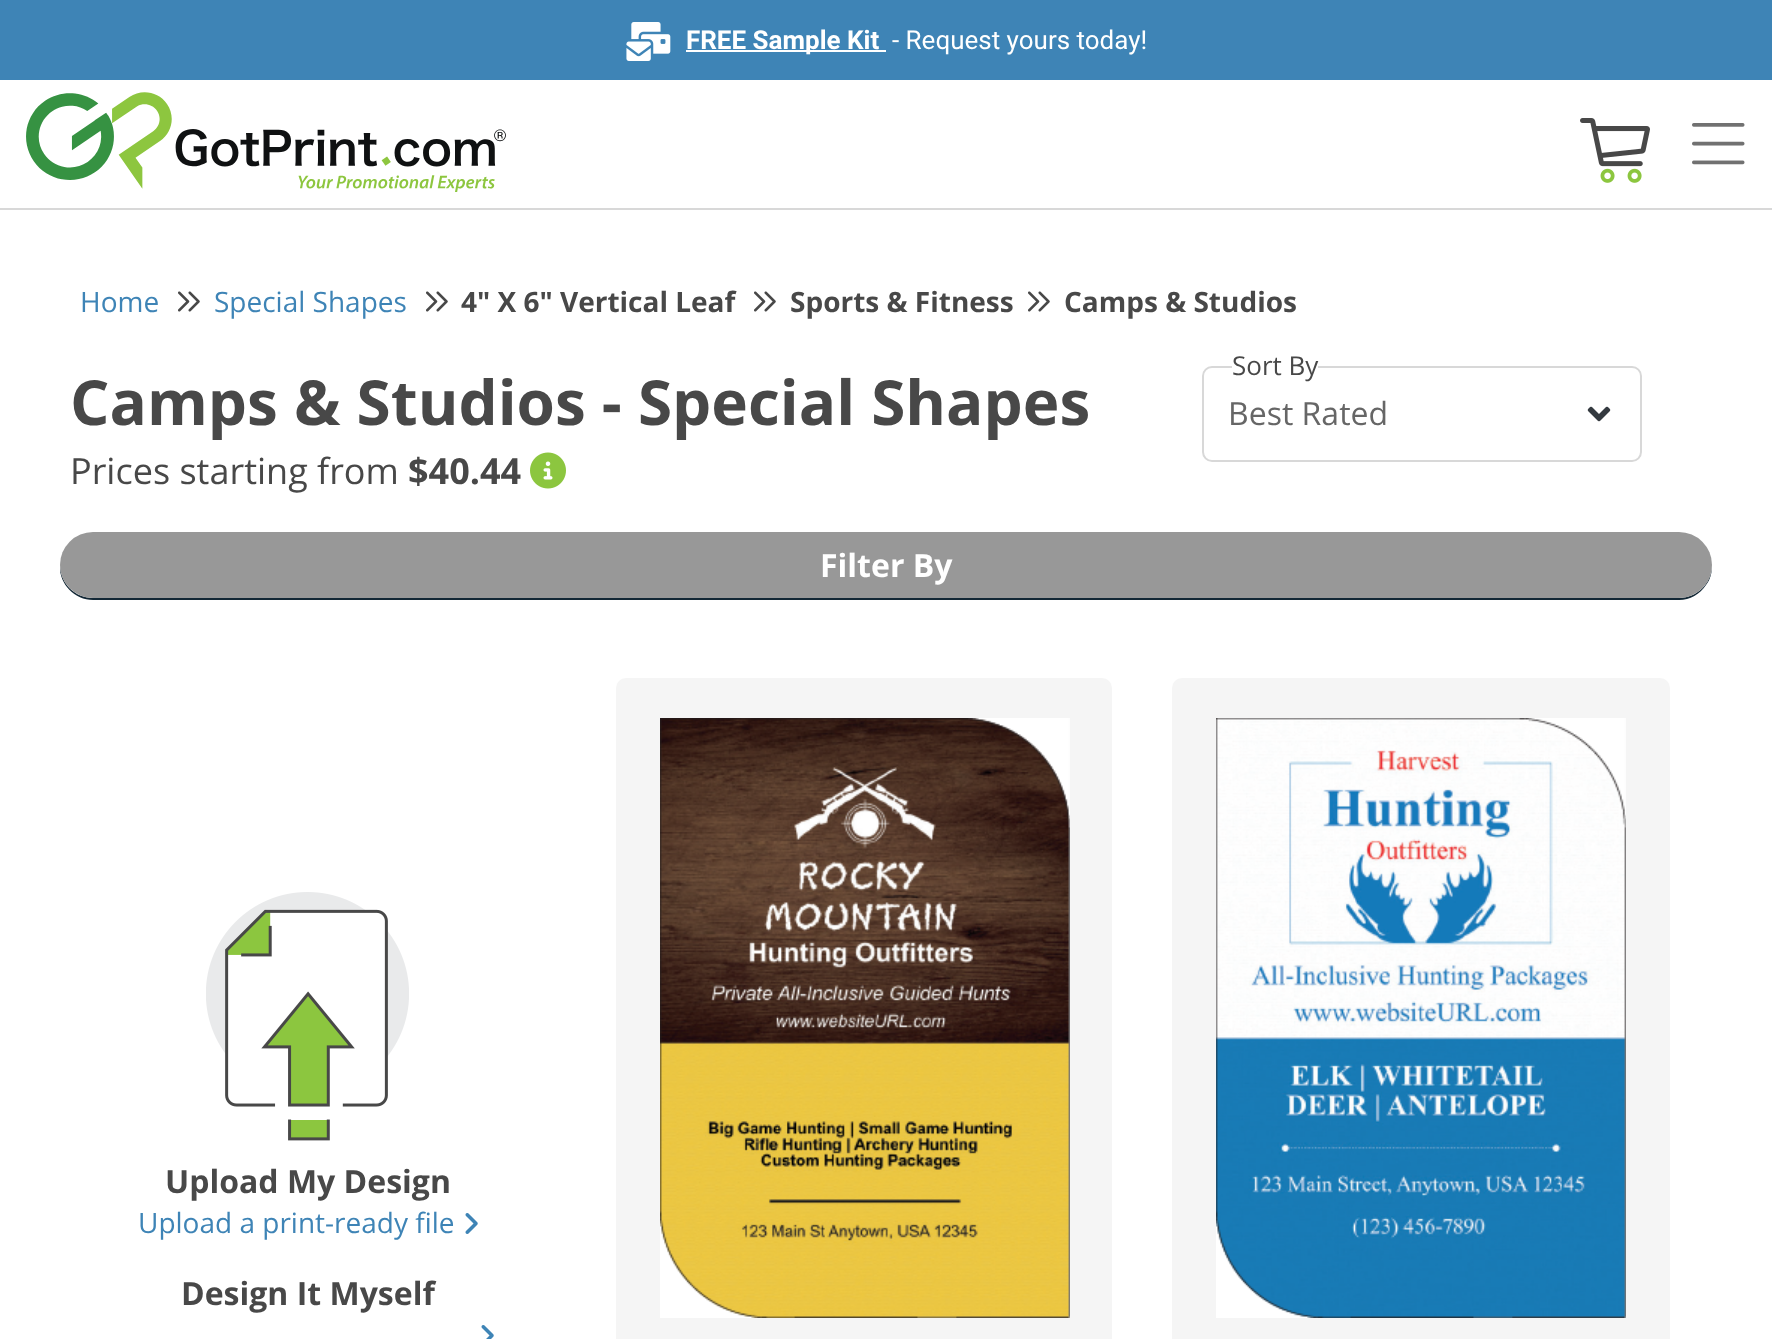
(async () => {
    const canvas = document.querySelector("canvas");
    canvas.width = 1772;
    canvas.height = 1339;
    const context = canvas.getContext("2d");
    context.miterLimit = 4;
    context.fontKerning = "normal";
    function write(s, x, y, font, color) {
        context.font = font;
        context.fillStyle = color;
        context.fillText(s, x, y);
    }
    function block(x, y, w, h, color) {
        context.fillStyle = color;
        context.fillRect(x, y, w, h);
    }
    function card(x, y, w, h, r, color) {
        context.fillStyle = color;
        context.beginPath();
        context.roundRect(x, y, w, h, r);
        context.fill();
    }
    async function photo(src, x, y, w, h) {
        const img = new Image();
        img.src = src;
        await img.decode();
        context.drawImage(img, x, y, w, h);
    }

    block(0, 0, 1772, 1339, "rgb(255, 255, 255)");
    block(0, 0, 1772, 80, "rgb(62, 132, 182)");
    await photo("media/1.png", 626, 22, 45, 39);
    block(686, 50, 200, 2, "rgb(255, 255, 255)");
    write("FREE Sample Kit", 686, 49, "bold 26px Roboto", "rgb(255, 255, 255)");
    write("- Request yours today!", 892, 49, "26px Roboto", "rgb(255, 255, 255)");
    block(0, 208, 1772, 2, "rgb(216, 216, 216)");
    await photo("media/2.png", 26, 92, 480, 100);
    await photo("media/3.png", 1580, 118, 70, 65);
    await photo("media/4.png", 1692, 123, 53, 42);
    write("Home", 80, 312, "28px Open Sans", "rgb(62, 132, 182)");
    await photo("media/5.png", 178, 291, 22, 21);
    write("Special Shapes", 214, 312, "28px Open Sans", "rgb(62, 132, 182)");
    await photo("media/5.png", 426, 291, 22, 21);
    write("4\" X 6\" Vertical Leaf", 461, 312, "bold 28px Open Sans", "rgb(72, 72, 72)");
    await photo("media/5.png", 754, 291, 22, 21);
    write("Sports & Fitness", 790, 312, "bold 28px Open Sans", "rgb(72, 72, 72)");
    await photo("media/5.png", 1028, 291, 22, 21);
    write("Camps & Studios", 1064, 312, "bold 28px Open Sans", "rgb(72, 72, 72)");
    write("Camps & Studios - Special Shapes", 70, 425, "bold 62px Open Sans", "rgb(72, 72, 72)");
    write("Prices starting from", 70, 484, "36px Open Sans", "rgb(72, 72, 72)");
    write("$40.44", 408, 484, "bold 36px Open Sans", "rgb(72, 72, 72)");
    await photo("media/6.png", 530, 452, 36, 37);
    await photo("media/7.png", 1587, 406, 24, 16);
    context.beginPath();
    context.roundRect(1203, 367, 438, 94, 9);
    context.strokeStyle = "rgb(216, 216, 216)";
    context.lineWidth = 2;
    context.stroke();
    block(1232, 366, 86, 2, "rgb(255, 255, 255)");
    write("Sort By", 1232, 375, "26px Open Sans", "rgb(72, 72, 72)");
    write("Best Rated", 1228, 425, "32px Open Sans", "rgb(102, 102, 102)");
    context.fillStyle = "rgb(19, 40, 54)";
    context.beginPath();
    context.moveTo(60, 566);
    context.bezierCurveTo(59, 584, 75, 600, 93, 600);
    context.lineTo(1679, 600);
    context.bezierCurveTo(1690, 600, 1700, 594, 1706, 585);
    context.bezierCurveTo(1710, 580, 1712, 573, 1712, 566);
    context.bezierCurveTo(1711, 584, 1697, 598, 1679, 598);
    context.lineTo(93, 598);
    context.bezierCurveTo(75, 598, 61, 584, 60, 566);
    context.closePath();
    context.fill();
    card(60, 532, 1652, 66, 33, "rgb(152, 152, 152)");
    write("Filter By", 820, 577, "bold 32px Open Sans", "rgb(255, 255, 255)");
    await photo("media/8.png", 206, 892, 203, 249);
    write("Upload My Design", 165, 1193, "bold 32px Open Sans", "rgb(72, 72, 72)");
    write("Upload a print-ready file", 138, 1233, "28px Open Sans", "rgb(62, 132, 182)");
    await photo("media/9.png", 465, 1213, 13, 21);
    write("Design It Myself", 181, 1305, "bold 32px Open Sans", "rgb(72, 72, 72)");
    await photo("media/10.png", 481, 1325, 13, 14);
    card(616, 678, 496, 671, 10, "rgb(245, 245, 245)");
    await photo("media/11.png", 660, 718, 410, 600);
    card(1172, 678, 498, 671, 10, "rgb(245, 245, 245)");
    await photo("media/12.png", 1216, 718, 410, 600);
})();
